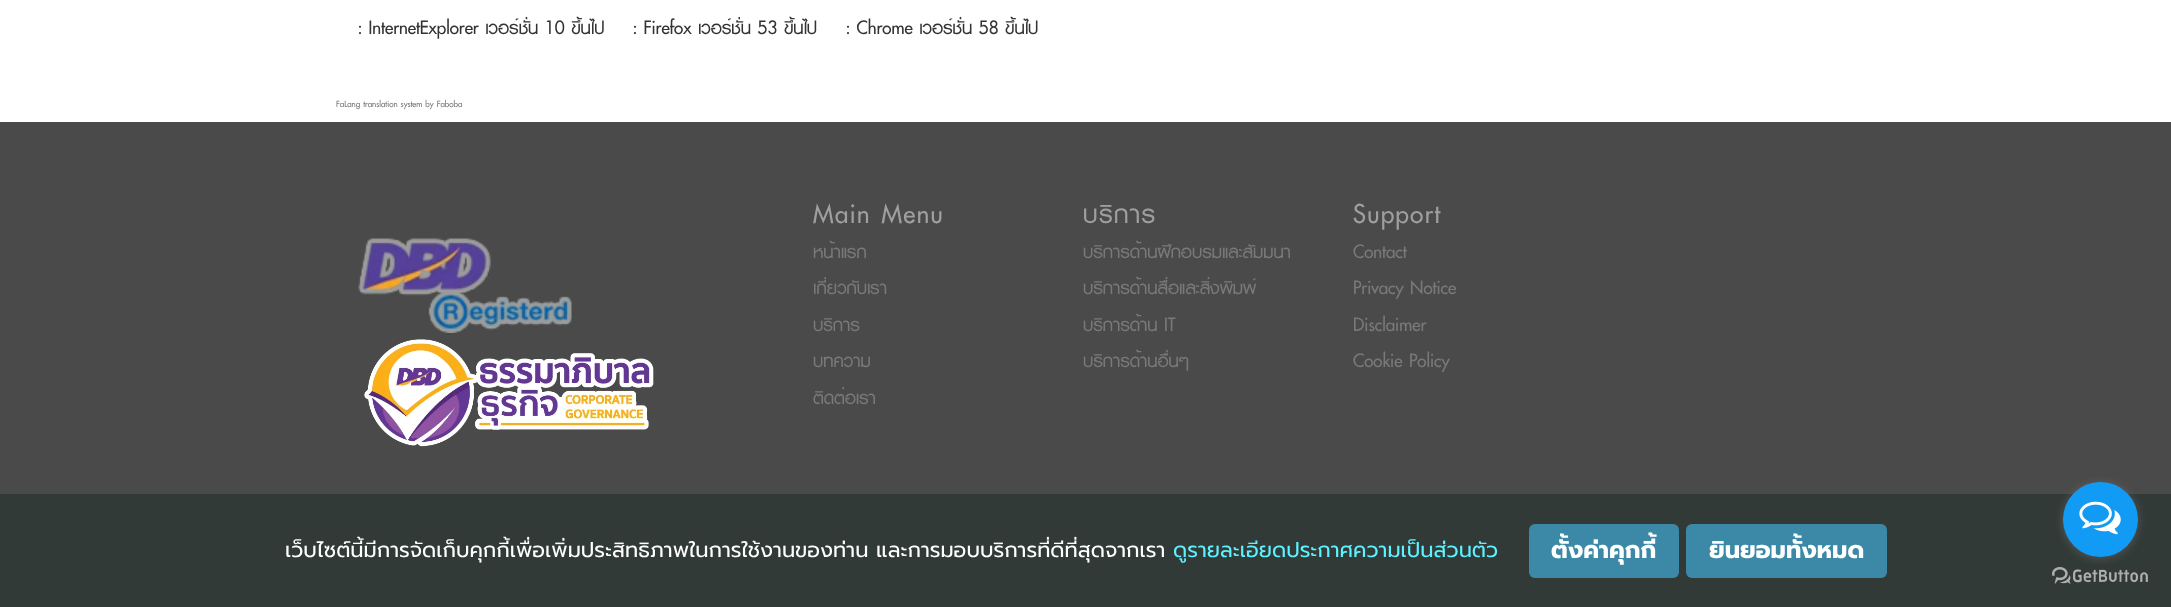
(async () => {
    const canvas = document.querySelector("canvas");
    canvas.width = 2171;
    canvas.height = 607;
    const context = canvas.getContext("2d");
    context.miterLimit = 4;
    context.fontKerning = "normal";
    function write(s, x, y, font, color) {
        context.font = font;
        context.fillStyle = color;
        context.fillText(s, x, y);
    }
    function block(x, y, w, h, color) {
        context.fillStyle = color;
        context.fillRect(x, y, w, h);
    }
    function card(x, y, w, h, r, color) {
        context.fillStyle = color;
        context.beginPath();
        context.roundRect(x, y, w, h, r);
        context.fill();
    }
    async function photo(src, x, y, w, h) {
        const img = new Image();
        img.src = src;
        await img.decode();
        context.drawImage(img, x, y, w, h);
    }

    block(0, 0, 2171, 607, "rgb(255, 255, 255)");
    write(": InternetExplorer เวอร์ชั่น 10 ขึ้นไป", 358, 34, "bold 25.5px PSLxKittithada", "rgb(51, 51, 51)");
    write(": Firefox เวอร์ชั่น 53 ขึ้นไป", 633, 34, "bold 25.5px PSLxKittithada", "rgb(51, 51, 51)");
    write(": Chrome เวอร์ชั่น 58 ขึ้นไป", 846, 34, "bold 25.5px PSLxKittithada", "rgb(51, 51, 51)");
    write("FaLang translation system by Faboba", 336, 107, "bold 12px PSLxKittithada", "rgb(121, 121, 121)");
    block(0, 122, 2171, 372, "rgb(74, 74, 74)");
    await photo("media/1.png", 358, 238, 214, 95);
    await photo("media/2.png", 364, 339, 290, 108);
    context.letterSpacing = "1.5px";
    write("Main Menu", 813, 223, "bold 36px PSLxKittithada", "rgb(159, 159, 159)");
    context.letterSpacing = "0px";
    write("หน้าแรก", 813, 258, "bold 25.5px PSLxKittithada", "rgb(121, 121, 121)");
    write("เกี่ยวกับเรา", 813, 294, "bold 25.5px PSLxKittithada", "rgb(121, 121, 121)");
    write("บริการ", 813, 331, "bold 25.5px PSLxKittithada", "rgb(121, 121, 121)");
    write("บทความ", 813, 367, "bold 25.5px PSLxKittithada", "rgb(121, 121, 121)");
    write("ติดต่อเรา", 813, 404, "bold 25.5px PSLxKittithada", "rgb(121, 121, 121)");
    context.letterSpacing = "1.5px";
    write("บริการ", 1083, 223, "bold 36px PSLxKittithada", "rgb(159, 159, 159)");
    context.letterSpacing = "0px";
    write("บริการด้านฝึกอบรมและสัมมนา", 1083, 258, "bold 25.5px PSLxKittithada", "rgb(121, 121, 121)");
    write("บริการด้านสื่อและสิ่งพิมพ์", 1083, 294, "bold 25.5px PSLxKittithada", "rgb(121, 121, 121)");
    write("บริการด้าน IT", 1083, 331, "bold 25.5px PSLxKittithada", "rgb(121, 121, 121)");
    write("บริการด้านอื่นๆ", 1083, 367, "bold 25.5px PSLxKittithada", "rgb(121, 121, 121)");
    context.letterSpacing = "1.5px";
    write("Support", 1353, 223, "bold 36px PSLxKittithada", "rgb(159, 159, 159)");
    context.letterSpacing = "0px";
    write("Contact", 1353, 258, "bold 25.5px PSLxKittithada", "rgb(121, 121, 121)");
    write("Privacy Notice", 1353, 294, "bold 25.5px PSLxKittithada", "rgb(121, 121, 121)");
    write("Disclaimer", 1353, 331, "bold 25.5px PSLxKittithada", "rgb(121, 121, 121)");
    write("Cookie Policy", 1353, 367, "bold 25.5px PSLxKittithada", "rgb(121, 121, 121)");
    block(0, 494, 2171, 113, "rgb(50, 58, 56)");
    write("เว็บไซต์นี้มีการจัดเก็บคุกกี้เพื่อเพิ่มประสิทธิภาพในการใช้งานของท่าน และการมอบบริการที่ดีที่สุดจากเรา", 285, 557, "21px Prompt", "rgb(255, 255, 255)");
    write("ดูรายละเอียดประกาศความเป็นส่วนตัว", 1173, 557, "21px Prompt", "rgb(92, 242, 255)");
    card(1529, 524, 150, 54, 6, "rgb(60, 137, 167)");
    write("ตั้งค่าคุกกี้", 1551, 558, "bold 24px Prompt", "rgb(255, 255, 255)");
    card(1686, 524, 201, 54, 6, "rgb(60, 137, 167)");
    write("ยินยอมทั้งหมด", 1709, 558, "bold 24px Prompt", "rgb(255, 255, 255)");
    await photo("media/4.png", 2052, 567, 96, 17);
    context.fillStyle = "rgba(136, 136, 136, 0.4)";
    context.filter = "blur(5px)";
    context.beginPath();
    context.roundRect(2063, 483, 75, 75, 37.5);
    context.fill();
    context.filter = "none";
    context.fillStyle = "rgb(18, 155, 244)";
    context.beginPath();
    context.arc(2100.5, 519.5, 37.5, 0, Math.PI * 2);
    context.fill();
    await photo("media/3.png", 2079, 501, 42, 34);
})();
